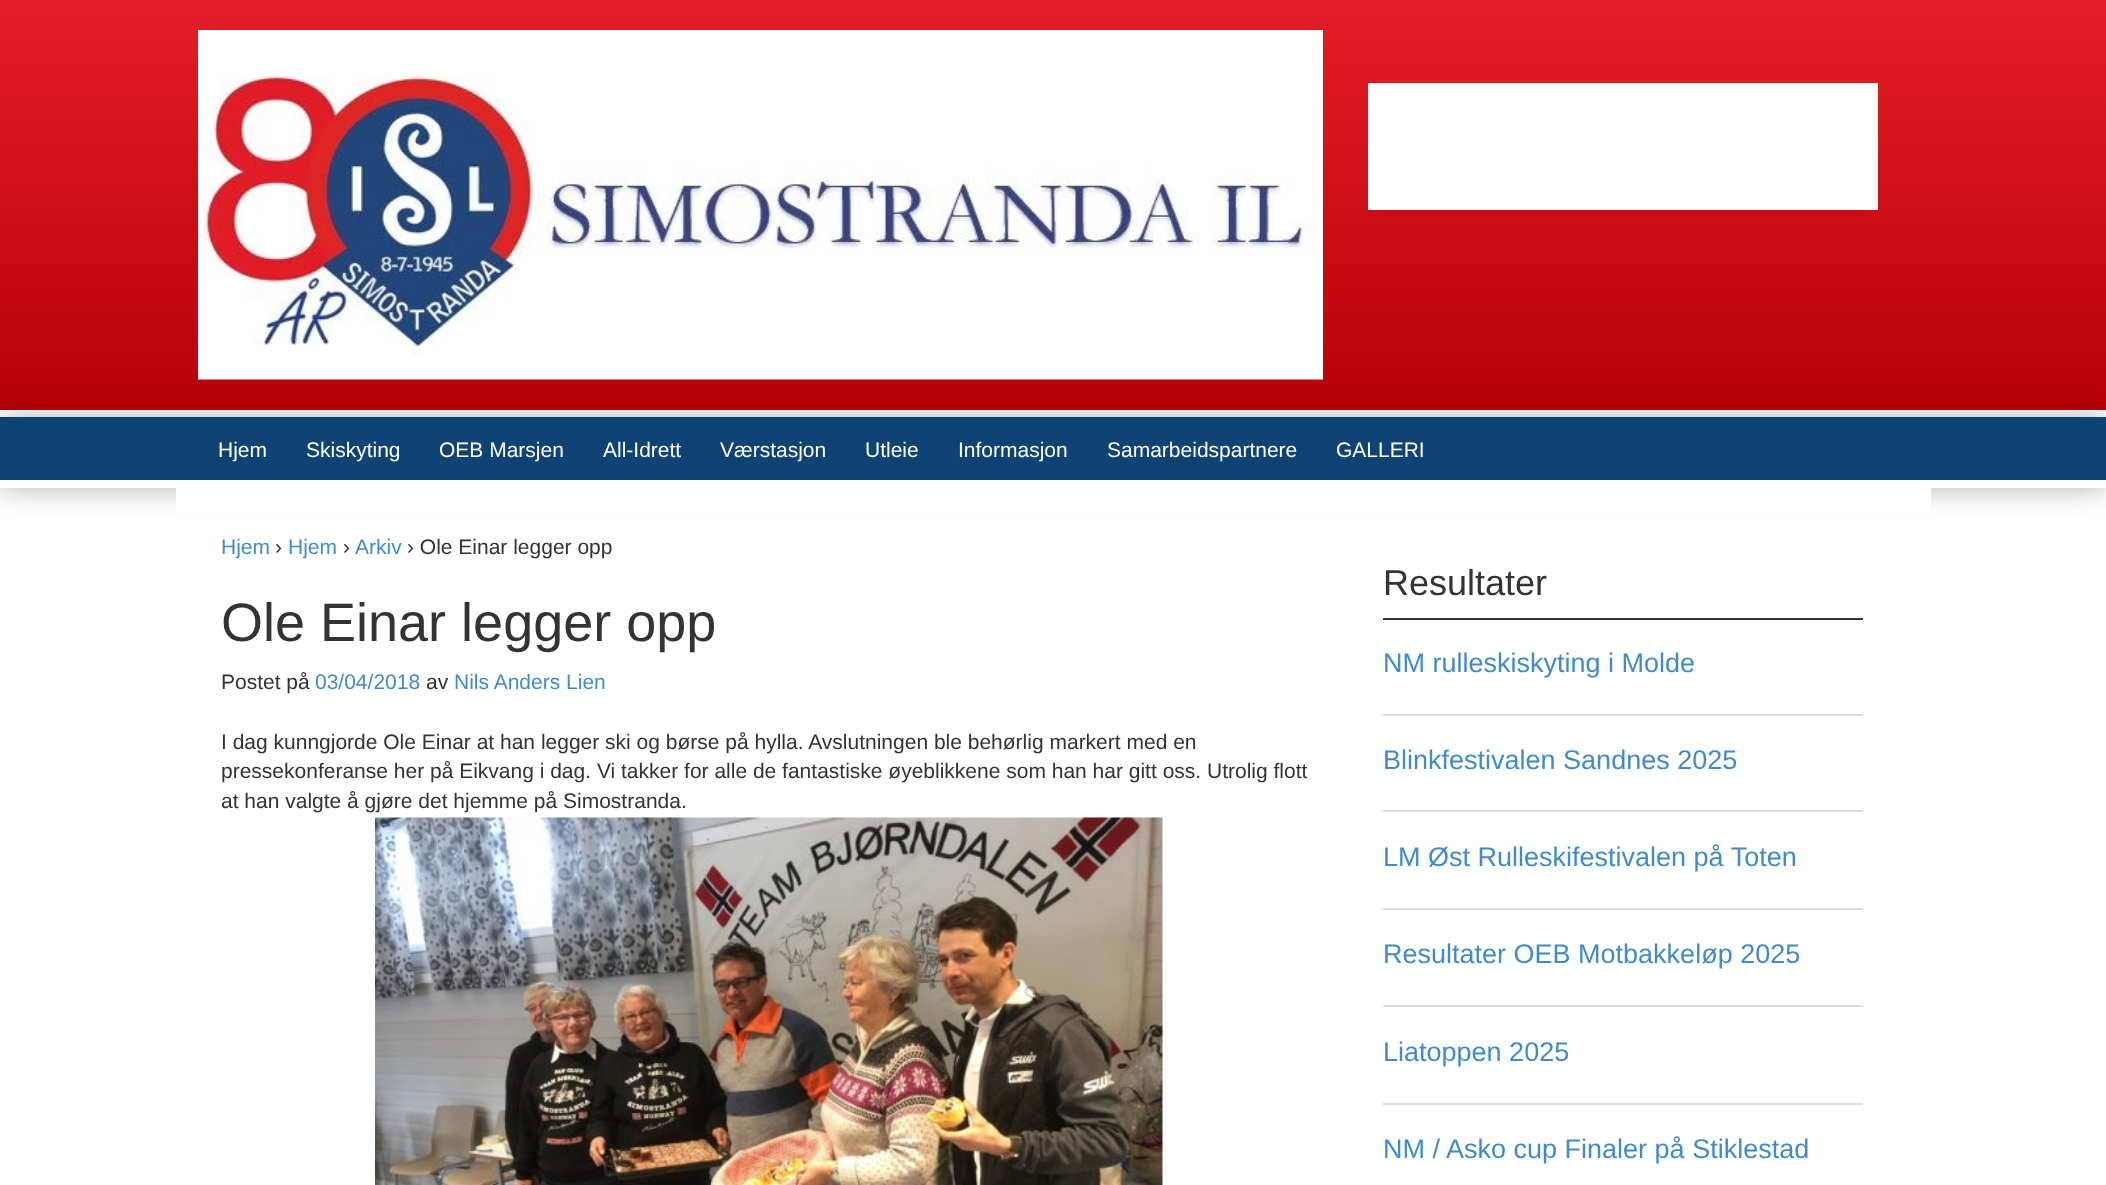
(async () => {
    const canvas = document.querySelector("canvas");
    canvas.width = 2106;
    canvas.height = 1185;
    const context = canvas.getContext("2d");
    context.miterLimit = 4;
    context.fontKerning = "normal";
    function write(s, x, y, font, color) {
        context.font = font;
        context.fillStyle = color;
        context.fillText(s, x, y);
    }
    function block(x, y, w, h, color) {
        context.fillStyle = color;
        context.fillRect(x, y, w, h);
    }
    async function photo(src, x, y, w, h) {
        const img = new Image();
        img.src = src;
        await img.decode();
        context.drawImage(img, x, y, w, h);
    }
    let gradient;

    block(0, 0, 2106, 1185, "rgb(255, 255, 255)");
    gradient = context.createLinearGradient(1053, 0, 1053, 410);
    gradient.addColorStop(0, "rgb(228, 30, 38)");
    gradient.addColorStop(1, "rgb(183, 0, 9)");
    context.fillStyle = gradient;
    context.fillRect(0, 0, 2106, 410);
    context.fillStyle = "rgba(0, 0, 0, 0.3)";
    context.filter = "blur(15px)";
    context.beginPath();
    context.rect(0, 417, 2106, 71);
    context.fill();
    context.filter = "none";
    await photo("media/1.png", 198, 30, 1125, 350);
    block(1368, 83, 510, 127, "rgb(255, 255, 255)");
    block(0, 417, 2106, 63, "rgb(15, 66, 117)");
    block(0, 480, 2106, 8, "rgb(255, 255, 255)");
    write("Hjem", 218, 457, "21px Liberation Sans", "rgb(255, 255, 255)");
    write("Skiskyting", 306, 457, "21px Liberation Sans", "rgb(255, 255, 255)");
    write("OEB Marsjen", 439, 457, "21px Liberation Sans", "rgb(255, 255, 255)");
    write("All-Idrett", 603, 457, "21px Liberation Sans", "rgb(255, 255, 255)");
    write("Værstasjon", 720, 457, "21px Liberation Sans", "rgb(255, 255, 255)");
    write("Utleie", 865, 457, "21px Liberation Sans", "rgb(255, 255, 255)");
    write("Informasjon", 958, 457, "21px Liberation Sans", "rgb(255, 255, 255)");
    write("Samarbeidspartnere", 1107, 457, "21px Liberation Sans", "rgb(255, 255, 255)");
    write("GALLERI", 1336, 457, "21px Liberation Sans", "rgb(255, 255, 255)");
    block(176, 488, 1755, 27, "rgb(255, 255, 255)");
    write("Hjem", 221, 554, "21px Liberation Sans", "rgb(66, 139, 202)");
    write("›", 275, 554, "21px Liberation Sans", "rgb(51, 51, 51)");
    write("Hjem", 288, 554, "21px Liberation Sans", "rgb(66, 139, 202)");
    write("›", 343, 554, "21px Liberation Sans", "rgb(51, 51, 51)");
    write("Arkiv", 355, 554, "21px Liberation Sans", "rgb(66, 139, 202)");
    write("› Ole Einar legger opp", 407, 554, "21px Liberation Sans", "rgb(51, 51, 51)");
    write("Ole Einar legger opp", 221, 641, "54px Liberation Sans", "rgb(51, 51, 51)");
    write("Postet på", 221, 689, "21px Liberation Sans", "rgb(51, 51, 51)");
    write("03/04/2018", 315, 689, "21px Liberation Sans", "rgb(66, 139, 202)");
    write("av", 426, 689, "21px Liberation Sans", "rgb(51, 51, 51)");
    write("Nils Anders Lien", 454, 689, "21px Liberation Sans", "rgb(66, 139, 202)");
    write("I dag kunngjorde Ole Einar at han legger ski og børse på hylla. Avslutningen ble behørlig markert med en", 221, 749, "21px Liberation Sans", "rgb(51, 51, 51)");
    write("pressekonferanse her på Eikvang i dag. Vi takker for alle de fantastiske øyeblikkene som han har gitt oss. Utrolig flott", 221, 778, "21px Liberation Sans", "rgb(51, 51, 51)");
    write("at han valgte å gjøre det hjemme på Simostranda.", 221, 808, "21px Liberation Sans", "rgb(51, 51, 51)");
    await photo("media/2.png", 375, 817, 788, 368);
    block(1383, 618, 480, 2, "rgb(51, 51, 51)");
    write("Resultater", 1383, 595, "36px Liberation Sans", "rgb(51, 51, 51)");
    block(1383, 714, 480, 2, "rgb(221, 221, 221)");
    write("NM rulleskiskyting i Molde", 1383, 672, "27px Liberation Sans", "rgb(66, 139, 202)");
    block(1383, 810, 480, 2, "rgb(221, 221, 221)");
    write("Blinkfestivalen Sandnes 2025", 1383, 769, "27px Liberation Sans", "rgb(66, 139, 202)");
    block(1383, 908, 480, 2, "rgb(221, 221, 221)");
    write("LM Øst Rulleskifestivalen på Toten", 1383, 866, "27px Liberation Sans", "rgb(66, 139, 202)");
    block(1383, 1005, 480, 2, "rgb(221, 221, 221)");
    write("Resultater OEB Motbakkeløp 2025", 1383, 963, "27px Liberation Sans", "rgb(66, 139, 202)");
    block(1383, 1103, 480, 2, "rgb(221, 221, 221)");
    write("Liatoppen 2025", 1383, 1061, "27px Liberation Sans", "rgb(66, 139, 202)");
    write("NM / Asko cup Finaler på Stiklestad", 1383, 1158, "27px Liberation Sans", "rgb(66, 139, 202)");
})();
